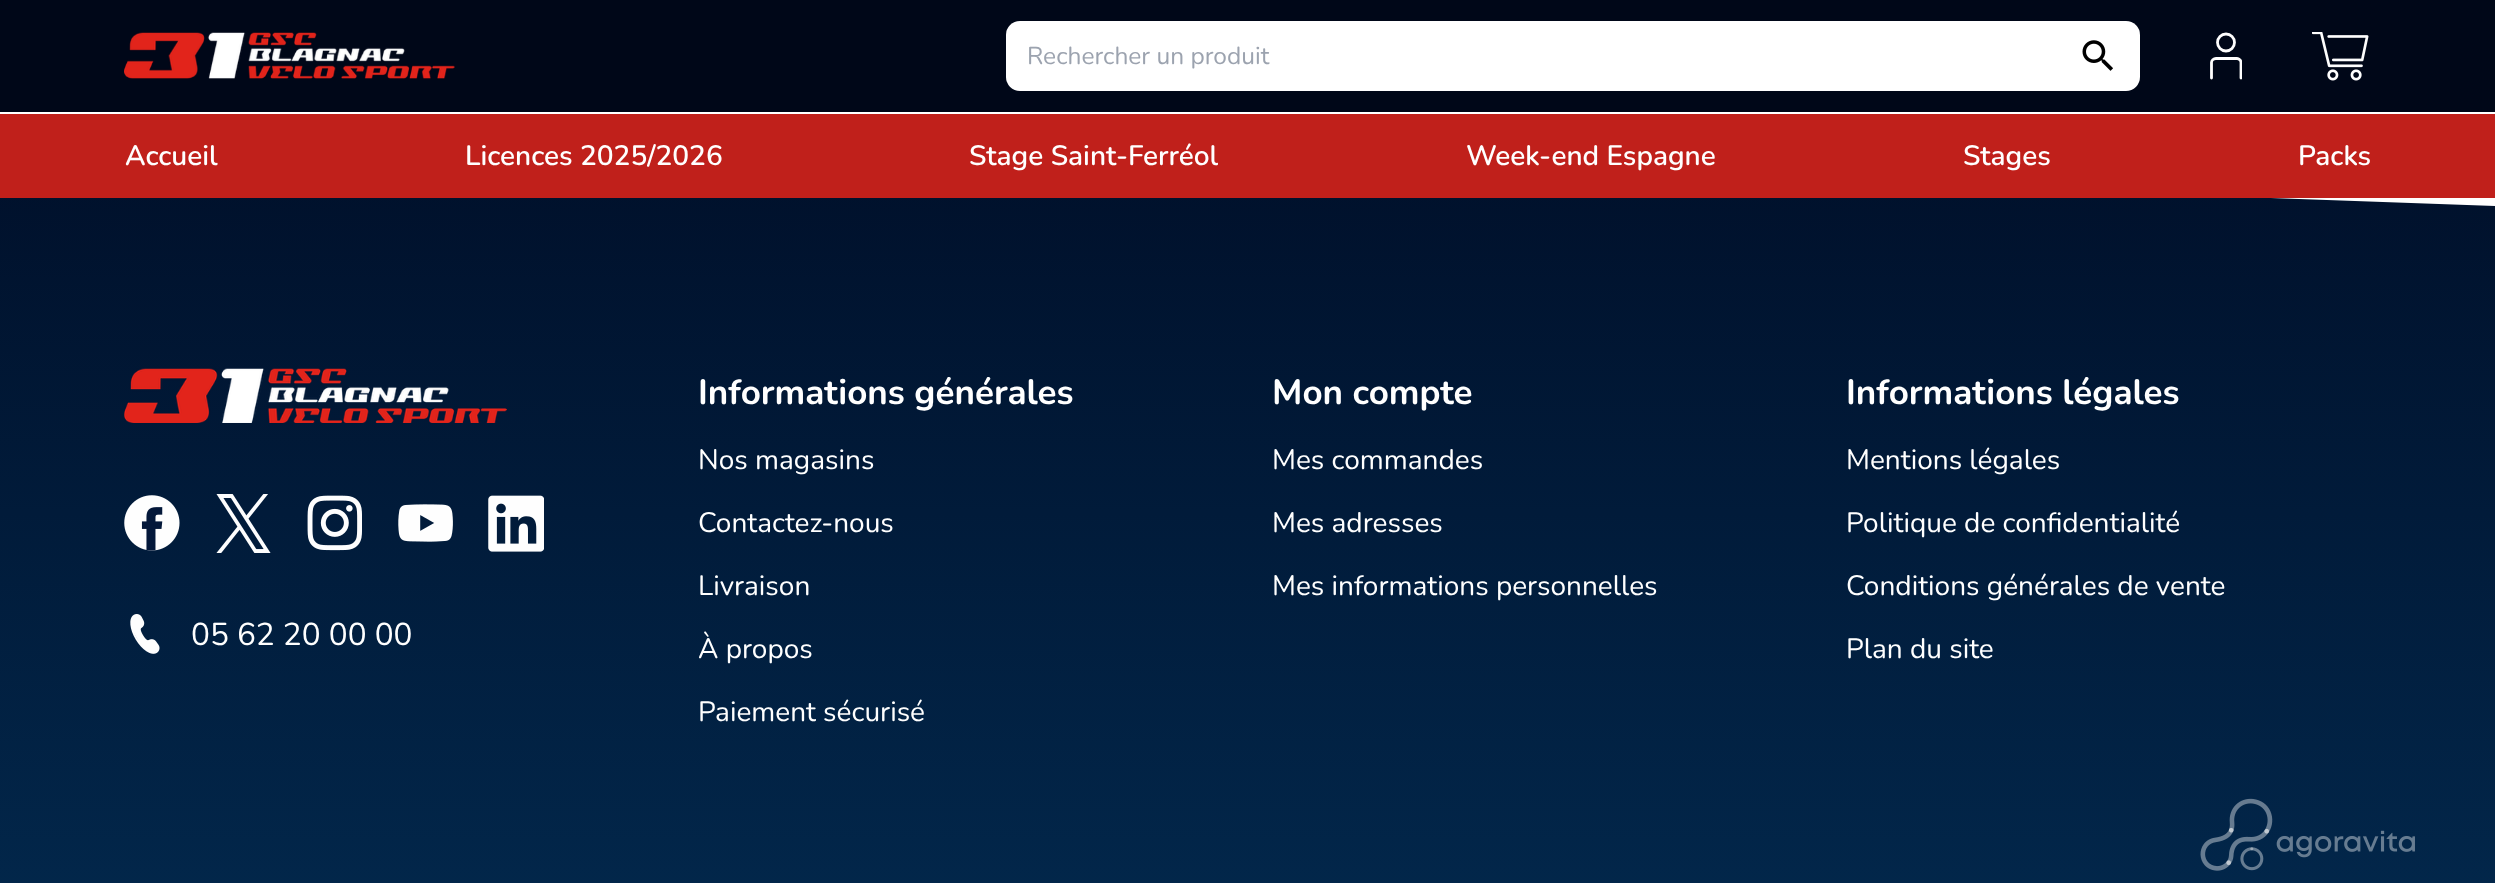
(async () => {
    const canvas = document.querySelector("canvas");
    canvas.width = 2495;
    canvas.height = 883;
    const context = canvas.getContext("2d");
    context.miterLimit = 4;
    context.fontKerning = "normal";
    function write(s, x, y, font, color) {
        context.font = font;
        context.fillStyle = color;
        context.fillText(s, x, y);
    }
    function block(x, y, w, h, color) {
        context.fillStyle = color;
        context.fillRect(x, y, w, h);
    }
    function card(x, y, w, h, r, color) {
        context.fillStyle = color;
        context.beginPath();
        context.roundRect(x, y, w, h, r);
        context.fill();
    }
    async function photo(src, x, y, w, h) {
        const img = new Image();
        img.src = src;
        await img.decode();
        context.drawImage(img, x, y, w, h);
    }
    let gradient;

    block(0, 0, 2495, 883, "rgb(255, 255, 255)");
    block(0, 0, 2495, 112, "rgb(0, 7, 24)");
    await photo("media/1.png", 124, 32, 331, 47);
    card(1006, 21, 1134, 70, 14, "rgb(255, 255, 255)");
    write("Rechercher un produit", 1027, 64, "24.5px Nunito", "rgb(156, 163, 175)");
    await photo("media/2.png", 2082, 40, 31, 31);
    context.beginPath();
    context.arc(2226, 42.5, 8.5, 0, Math.PI * 2);
    context.strokeStyle = "rgb(254, 254, 254)";
    context.lineWidth = 2.8;
    context.stroke();
    context.save();
    context.beginPath();
    context.rect(2210, 32, 32, 49);
    context.clip();
    context.beginPath();
    context.moveTo(2211.5, 78);
    context.lineTo(2211.5, 62.5);
    context.bezierCurveTo(2211.5, 60.5, 2213.5, 58.5, 2216, 58.5);
    context.lineTo(2237, 58.5);
    context.bezierCurveTo(2239, 58.5, 2241, 60.5, 2241, 62.5);
    context.lineTo(2241, 78);
    context.lineCap = "round";
    context.lineJoin = "round";
    context.stroke();
    context.restore();
    await photo("media/3.png", 2312, 32, 57, 49);
    gradient = context.createLinearGradient(1248, 117, 1248, 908);
    gradient.addColorStop(0, "rgb(0, 15, 41)");
    gradient.addColorStop(1, "rgb(2, 39, 75)");
    context.fillStyle = gradient;
    context.fillRect(0, 198, 2495, 685);
    context.fillStyle = "rgb(255, 255, 255)";
    context.beginPath();
    context.moveTo(2495, 117);
    context.lineTo(0, 117);
    context.lineTo(2495, 206);
    context.closePath();
    context.fill();
    block(0, 114, 2495, 84, "rgb(192, 32, 27)");
    write("Accueil", 125, 165, "600 28px Nunito", "rgb(255, 255, 255)");
    write("Licences 2025/2026", 465, 165, "600 28px Nunito", "rgb(255, 255, 255)");
    write("Stage Saint-Ferréol", 969, 165, "600 28px Nunito", "rgb(255, 255, 255)");
    write("Week-end Espagne", 1466, 165, "600 28px Nunito", "rgb(255, 255, 255)");
    write("Stages", 1963, 165, "600 28px Nunito", "rgb(255, 255, 255)");
    write("Packs", 2298, 165, "600 28px Nunito", "rgb(255, 255, 255)");
    write("Informations générales", 698, 404, "bold 35px Nunito", "rgb(255, 255, 255)");
    write("Nos magasins", 698, 469, "28px Nunito", "rgb(255, 255, 255)");
    write("Contactez-nous", 698, 532, "28px Nunito", "rgb(255, 255, 255)");
    write("Livraison", 698, 595, "28px Nunito", "rgb(255, 255, 255)");
    write("À propos", 698, 658, "28px Nunito", "rgb(255, 255, 255)");
    write("Paiement sécurisé", 698, 721, "28px Nunito", "rgb(255, 255, 255)");
    write("Mon compte", 1272, 404, "bold 35px Nunito", "rgb(255, 255, 255)");
    write("Mes commandes", 1272, 469, "28px Nunito", "rgb(255, 255, 255)");
    write("Mes adresses", 1272, 532, "28px Nunito", "rgb(255, 255, 255)");
    write("Mes informations personnelles", 1272, 595, "28px Nunito", "rgb(255, 255, 255)");
    write("Informations légales", 1846, 404, "bold 35px Nunito", "rgb(255, 255, 255)");
    write("Mentions légales", 1846, 469, "28px Nunito", "rgb(255, 255, 255)");
    write("Politique de confidentialité", 1846, 532, "28px Nunito", "rgb(255, 255, 255)");
    write("Conditions générales de vente", 1846, 595, "28px Nunito", "rgb(255, 255, 255)");
    write("Plan du site", 1846, 658, "28px Nunito", "rgb(255, 255, 255)");
    await photo("media/4.png", 124, 368, 383, 55);
    await photo("media/5.png", 124, 495, 56, 56);
    await photo("media/6.png", 216, 494, 55, 59);
    await photo("media/7.png", 307, 495, 55, 56);
    await photo("media/8.png", 398, 504, 55, 38);
    await photo("media/9.png", 488, 495, 56, 57);
    await photo("media/10.png", 130, 614, 30, 40);
    write("05 62 20 00 00", 191, 645, "31.5px Nunito", "rgb(255, 255, 255)");
    await photo("media/11.png", 2200, 798, 215, 73);
})();
